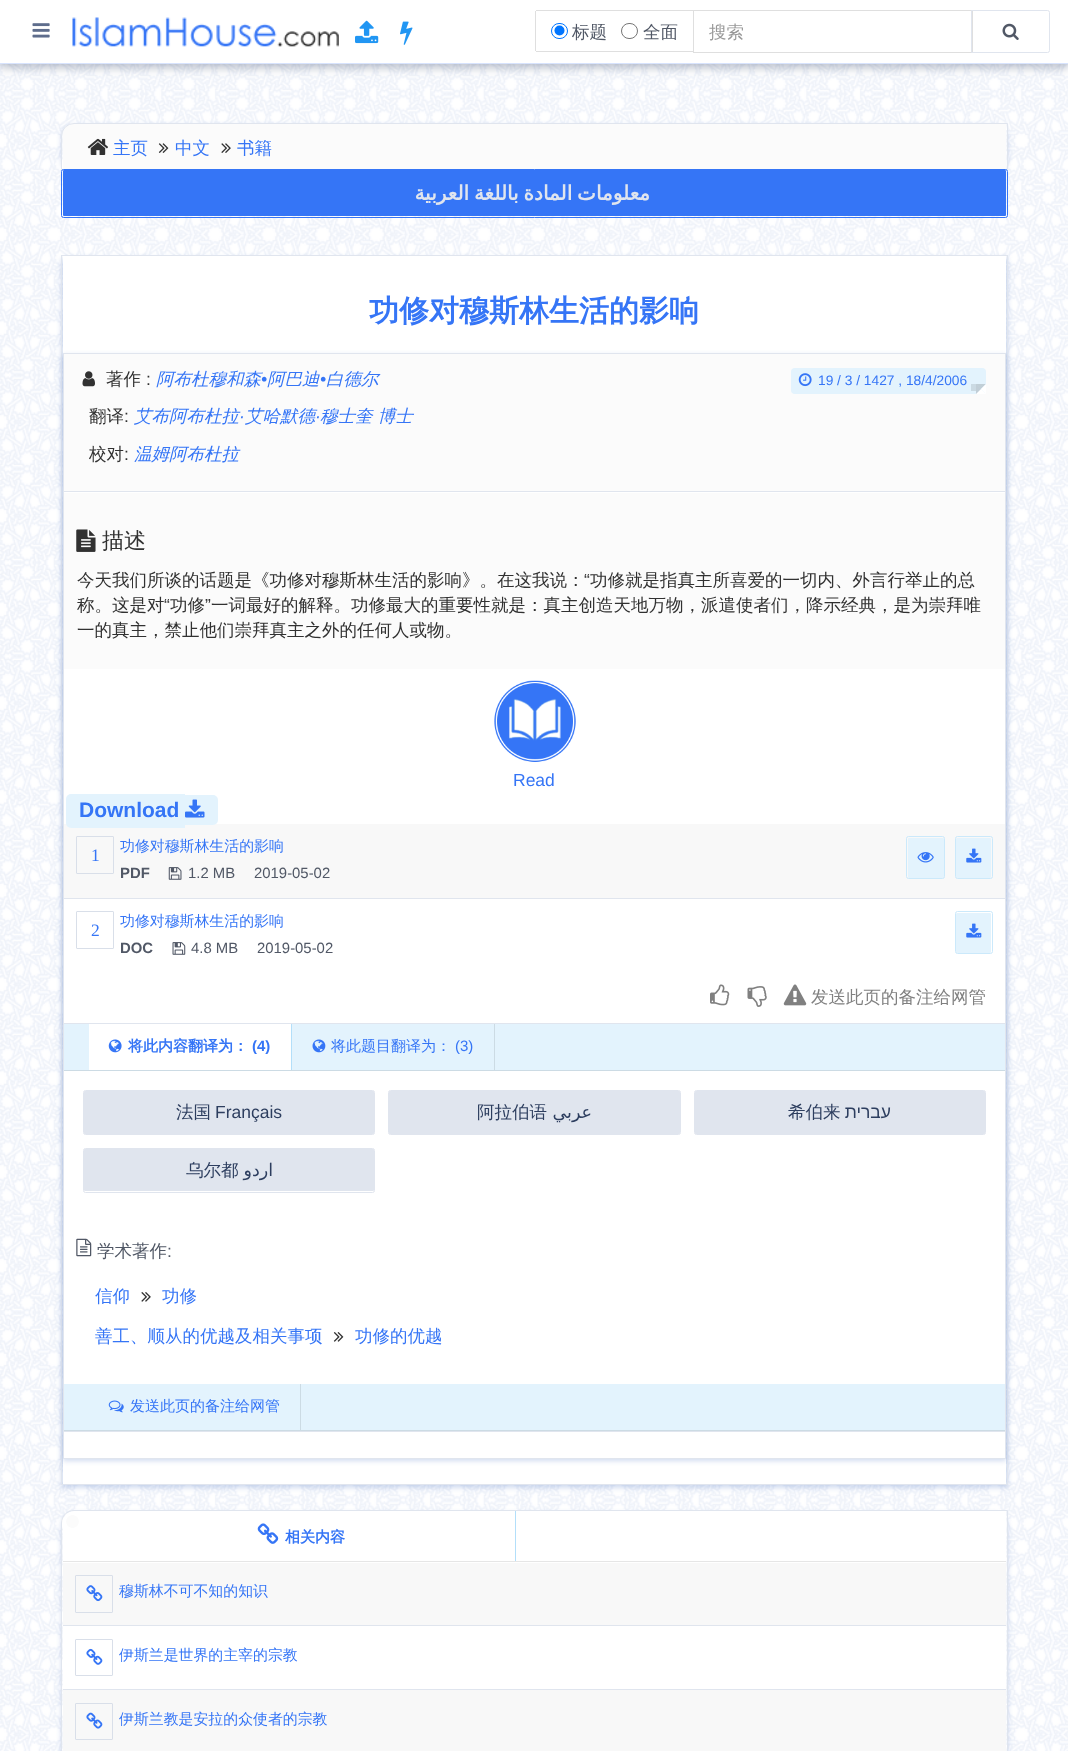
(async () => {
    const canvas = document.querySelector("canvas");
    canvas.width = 1068;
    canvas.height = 1751;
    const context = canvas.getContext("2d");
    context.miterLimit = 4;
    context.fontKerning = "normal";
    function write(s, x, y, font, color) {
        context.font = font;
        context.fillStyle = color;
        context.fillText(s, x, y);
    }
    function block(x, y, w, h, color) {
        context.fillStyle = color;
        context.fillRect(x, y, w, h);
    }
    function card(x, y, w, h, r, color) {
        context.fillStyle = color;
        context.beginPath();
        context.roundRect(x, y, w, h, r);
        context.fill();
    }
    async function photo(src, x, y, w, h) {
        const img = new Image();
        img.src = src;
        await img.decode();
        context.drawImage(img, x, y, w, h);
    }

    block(0, 0, 1068, 1751, "rgb(255, 255, 255)");
    await photo("media/6.png", 0, 64, 1068, 1687);
    context.fillStyle = "rgba(45, 62, 95, 0.32)";
    context.filter = "blur(5px)";
    context.beginPath();
    context.rect(0, 4, 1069, 64);
    context.fill();
    context.filter = "none";
    block(0, 0, 1068, 63, "rgb(255, 255, 255)");
    block(0, 63, 1068, 1, "rgb(215, 227, 253)");
    await photo("media/1.png", 32, 23, 18, 15);
    await photo("media/2.png", 72, 17, 267, 30);
    await photo("media/3.png", 355, 20, 24, 24);
    await photo("media/4.png", 400, 21, 13, 24);
    block(536, 10, 157, 1, "rgb(223, 223, 223)");
    block(536, 51, 157, 1, "rgb(223, 223, 223)");
    block(535, 11, 1, 40, "rgb(223, 223, 223)");
    context.beginPath();
    context.roundRect(551.5, 23.5, 16, 15, 7.5);
    context.strokeStyle = "rgb(0, 117, 255)";
    context.stroke();
    context.fillStyle = "rgb(0, 117, 255)";
    context.beginPath();
    context.arc(559.5, 30.5, 5, 0, Math.PI * 2);
    context.fill();
    write("标题", 572, 38, "500 17.5px WenQuanYi Zen Hei", "rgb(81, 88, 102)");
    context.beginPath();
    context.roundRect(621.5, 23.5, 16, 15, 7.5);
    context.strokeStyle = "rgb(118, 118, 118)";
    context.stroke();
    write("全面", 643, 38, "500 17.5px WenQuanYi Zen Hei", "rgb(81, 88, 102)");
    context.strokeStyle = "rgb(223, 223, 223)";
    context.strokeRect(693.5, 10.5, 279, 42);
    write("搜索", 709, 38, "500 17.5px WenQuanYi Zen Hei", "rgb(153, 153, 153)");
    context.beginPath();
    context.roundRect(971.5, 10.5, 78, 42, [0, 2, 2, 0]);
    context.strokeStyle = "rgb(224, 229, 238)";
    context.stroke();
    await photo("media/5.png", 1002, 23, 17, 17);
    context.save();
    context.beginPath();
    context.moveTo(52, 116);
    context.lineTo(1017, 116);
    context.lineTo(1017, 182);
    context.lineTo(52, 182);
    context.closePath();
    context.moveTo(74, 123);
    context.lineTo(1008, 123);
    context.lineTo(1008, 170);
    context.lineTo(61, 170);
    context.lineTo(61, 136);
    context.bezierCurveTo(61, 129, 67, 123, 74, 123);
    context.closePath();
    context.clip("evenodd");
    context.fillStyle = "rgba(29, 79, 179, 0.2)";
    context.filter = "blur(2.5px)";
    context.beginPath();
    context.roundRect(61, 125, 947, 48, 13);
    context.fill();
    context.filter = "none";
    context.restore();
    context.fillStyle = "rgb(251, 251, 251)";
    context.beginPath();
    context.roundRect(63, 124, 943, 45, [11, 0, 0, 0]);
    context.fill();
    context.beginPath();
    context.roundRect(61.5, 123.5, 946, 46, [12.5, 0, 0, 0]);
    context.stroke();
    await photo("media/7.png", 87, 138, 21, 17);
    write("主页", 113, 154, "500 17.5px WenQuanYi Zen Hei", "rgb(53, 117, 246)");
    await photo("media/8.png", 158, 143, 11, 10);
    write("中文", 175, 154, "500 17.5px WenQuanYi Zen Hei", "rgb(53, 117, 246)");
    await photo("media/9.png", 221, 143, 10, 10);
    write("书籍", 237, 154, "500 17.5px WenQuanYi Zen Hei", "rgb(53, 117, 246)");
    card(63, 170, 943, 46, 1, "rgb(53, 117, 246)");
    context.beginPath();
    context.roundRect(61.5, 169.5, 946, 48, 2);
    context.strokeStyle = "rgb(53, 117, 246)";
    context.stroke();
    context.wordSpacing = "-1.5px";
    context.direction = "rtl";
    write("معلومات المادة باللغة العربية", 650, 200, "bold 20px DejaVu Sans", "rgb(224, 229, 238)");
    context.fillStyle = "rgba(29, 79, 179, 0.2)";
    context.filter = "blur(2.5px)";
    context.beginPath();
    context.rect(61, 258, 947, 1230);
    context.fill();
    context.filter = "none";
    block(63, 256, 943, 1228, "rgb(255, 255, 255)");
    context.strokeStyle = "rgb(224, 229, 238)";
    context.strokeRect(61.5, 255.5, 946, 1229);
    context.wordSpacing = "0px";
    context.direction = "ltr";
    write("功修对穆斯林生活的影响", 369, 321, "bold 30px WenQuanYi Zen Hei", "rgb(53, 117, 246)");
    context.save();
    context.beginPath();
    context.moveTo(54, 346);
    context.lineTo(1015, 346);
    context.lineTo(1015, 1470);
    context.lineTo(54, 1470);
    context.closePath();
    context.moveTo(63, 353);
    context.lineTo(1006, 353);
    context.lineTo(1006, 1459);
    context.lineTo(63, 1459);
    context.closePath();
    context.clip("evenodd");
    context.fillStyle = "rgba(29, 79, 179, 0.2)";
    context.filter = "blur(2.5px)";
    context.beginPath();
    context.rect(63, 355, 943, 1106);
    context.fill();
    context.filter = "none";
    context.restore();
    context.strokeRect(63.5, 353.5, 942, 1105);
    block(64, 354, 941, 137, "rgb(251, 251, 251)");
    block(64, 491, 941, 1, "rgb(224, 229, 238)");
    await photo("media/10.png", 82, 371, 13, 16);
    write("著作", 106, 385, "500 17.5px WenQuanYi Zen Hei", "rgb(49, 49, 49)");
    write(":", 146, 385, "17.5px Liberation Sans", "rgb(49, 49, 49)");
    write("阿布杜穆和森", 156, 385, "italic 500 17.5px WenQuanYi Zen Hei", "rgb(53, 117, 246)");
    write("•", 261, 385, "italic 17.5px Liberation Sans", "rgb(53, 117, 246)");
    write("阿巴迪", 267, 385, "italic 500 17.5px WenQuanYi Zen Hei", "rgb(53, 117, 246)");
    write("•", 320, 385, "italic 17.5px Liberation Sans", "rgb(53, 117, 246)");
    write("白德尔", 326, 385, "italic 500 17.5px WenQuanYi Zen Hei", "rgb(53, 117, 246)");
    write("翻译", 89, 422, "500 17.5px WenQuanYi Zen Hei", "rgb(49, 49, 49)");
    write(":", 124, 422, "17.5px Liberation Sans", "rgb(49, 49, 49)");
    write("艾布阿布杜拉", 134, 422, "italic 500 17.5px WenQuanYi Zen Hei", "rgb(53, 117, 246)");
    write("·", 239, 422, "italic 17.5px Liberation Sans", "rgb(53, 117, 246)");
    write("艾哈默德", 245, 422, "italic 500 17.5px WenQuanYi Zen Hei", "rgb(53, 117, 246)");
    write("·", 315, 422, "italic 17.5px Liberation Sans", "rgb(53, 117, 246)");
    write("穆士奎 博士", 320, 422, "italic 500 17.5px WenQuanYi Zen Hei", "rgb(53, 117, 246)");
    write("校对", 89, 460, "500 17.5px WenQuanYi Zen Hei", "rgb(49, 49, 49)");
    write(":", 124, 460, "17.5px Liberation Sans", "rgb(49, 49, 49)");
    write("温姆阿布杜拉", 134, 460, "italic 500 17.5px WenQuanYi Zen Hei", "rgb(53, 117, 246)");
    card(791, 368, 195, 26, 4, "rgb(227, 243, 253)");
    await photo("media/11.png", 798, 373, 14, 14);
    write("19 / 3 / 1427 , 18/4/2006", 818, 385, "13.75px Liberation Sans", "rgb(53, 117, 246)");
    context.save();
    context.beginPath();
    context.moveTo(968, 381);
    context.lineTo(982, 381);
    context.lineTo(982, 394);
    context.lineTo(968, 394);
    context.closePath();
    context.moveTo(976, 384);
    context.lineTo(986, 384);
    context.lineTo(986, 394);
    context.lineTo(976, 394);
    context.closePath();
    context.clip("evenodd");
    context.fillStyle = "rgba(0, 0, 0, 0.1)";
    context.filter = "blur(0.5px)";
    context.beginPath();
    context.rect(971, 384, 8, 7);
    context.fill();
    context.filter = "none";
    context.restore();
    context.fillStyle = "rgb(193, 207, 215)";
    context.beginPath();
    context.moveTo(976, 384);
    context.lineTo(986, 384);
    context.lineTo(981, 389);
    context.closePath();
    context.fill();
    context.fillStyle = "rgb(255, 255, 255)";
    context.beginPath();
    context.moveTo(986, 384);
    context.lineTo(986, 394);
    context.lineTo(981, 389);
    context.closePath();
    context.fill();
    context.beginPath();
    context.moveTo(986, 394);
    context.lineTo(976, 394);
    context.lineTo(981, 389);
    context.closePath();
    context.fill();
    context.fillStyle = "rgba(0, 0, 0, 0.15)";
    context.beginPath();
    context.moveTo(976, 394);
    context.lineTo(976, 384);
    context.lineTo(981, 389);
    context.closePath();
    context.fill();
    block(64, 493, 941, 176, "rgb(251, 251, 251)");
    await photo("media/12.png", 76, 529, 20, 23);
    write("描述", 102, 548, "500 22px WenQuanYi Zen Hei", "rgb(49, 49, 49)");
    write("今天我们所谈的话题是《功修对穆斯林生活的影响》。在这我说：", 77, 586, "500 17.5px WenQuanYi Zen Hei", "rgb(49, 49, 49)");
    write("“", 584, 586, "17.5px Liberation Sans", "rgb(49, 49, 49)");
    write("功修就是指真主所喜爱的一切内、外言行举止的总", 590, 586, "500 17.5px WenQuanYi Zen Hei", "rgb(49, 49, 49)");
    write("称。这是对", 77, 611, "500 17.5px WenQuanYi Zen Hei", "rgb(49, 49, 49)");
    write("“", 164, 611, "17.5px Liberation Sans", "rgb(49, 49, 49)");
    write("功修", 170, 611, "500 17.5px WenQuanYi Zen Hei", "rgb(49, 49, 49)");
    write("”", 205, 611, "17.5px Liberation Sans", "rgb(49, 49, 49)");
    write("一词最好的解释。功修最大的重要性就是：真主创造天地万物，派遣使者们，降示经典，是为崇拜唯", 211, 611, "500 17.5px WenQuanYi Zen Hei", "rgb(49, 49, 49)");
    write("一的真主，禁止他们崇拜真主之外的任何人或物。", 77, 636, "500 17.5px WenQuanYi Zen Hei", "rgb(49, 49, 49)");
    await photo("media/13.png", 494, 680, 82, 82);
    write("Read", 513, 786, "17.5px Liberation Sans", "rgb(53, 117, 246)");
    block(64, 824, 941, 74, "rgb(248, 248, 248)");
    context.fillStyle = "rgb(227, 243, 253)";
    context.beginPath();
    context.roundRect(66, 794, 119, 34, [5, 0, 0, 5]);
    context.fill();
    context.beginPath();
    context.roundRect(185, 795, 33, 30, [0, 5, 5, 0]);
    context.fill();
    write("Download", 79, 817, "bold 21px Liberation Sans", "rgb(53, 117, 246)");
    await photo("media/14.png", 185, 799, 20, 19);
    block(64, 898, 941, 1, "rgb(224, 229, 238)");
    context.beginPath();
    context.roundRect(76.5, 836.5, 37, 37, 0.5);
    context.strokeStyle = "rgb(217, 223, 233)";
    context.stroke();
    write("1", 91, 861, "17.5px Liberation Serif", "rgb(53, 117, 246)");
    write("功修对穆斯林生活的影响", 120, 851, "500 14.9px WenQuanYi Zen Hei", "rgb(53, 117, 246)");
    write("PDF", 120, 878, "bold 14.9px Liberation Sans", "rgb(81, 88, 102)");
    await photo("media/15.png", 168, 867, 14, 13);
    write("1.2 MB", 188, 878, "14.9px Liberation Sans", "rgb(81, 88, 102)");
    write("2019-05-02", 254, 878, "14.9px Liberation Sans", "rgb(81, 88, 102)");
    card(908, 838, 36, 40, 1, "rgb(227, 243, 253)");
    context.beginPath();
    context.roundRect(906.5, 836.5, 38, 42, 2);
    context.strokeStyle = "rgb(203, 233, 251)";
    context.stroke();
    await photo("media/16.png", 917, 852, 17, 11);
    card(956, 838, 35, 40, 1, "rgb(227, 243, 253)");
    context.beginPath();
    context.roundRect(955.5, 836.5, 37, 42, 2);
    context.stroke();
    await photo("media/17.png", 966, 848, 16, 15);
    context.beginPath();
    context.roundRect(76.5, 911.5, 37, 37, 0.5);
    context.strokeStyle = "rgb(217, 223, 233)";
    context.stroke();
    write("2", 91, 936, "17.5px Liberation Serif", "rgb(53, 117, 246)");
    write("功修对穆斯林生活的影响", 120, 926, "500 14.9px WenQuanYi Zen Hei", "rgb(53, 117, 246)");
    write("DOC", 120, 953, "bold 14.9px Liberation Sans", "rgb(81, 88, 102)");
    await photo("media/18.png", 172, 942, 14, 13);
    write("4.8 MB", 191, 953, "14.9px Liberation Sans", "rgb(81, 88, 102)");
    write("2019-05-02", 257, 953, "14.9px Liberation Sans", "rgb(81, 88, 102)");
    card(956, 913, 35, 40, 1, "rgb(227, 243, 253)");
    context.beginPath();
    context.roundRect(955.5, 911.5, 37, 42, 2);
    context.strokeStyle = "rgb(203, 233, 251)";
    context.stroke();
    await photo("media/17.png", 966, 923, 16, 15);
    await photo("media/19.png", 710, 984, 20, 22);
    await photo("media/20.png", 747, 986, 20, 21);
    await photo("media/21.png", 783, 984, 24, 22);
    write("发送此页的备注给网管", 811, 1003, "500 17.5px WenQuanYi Zen Hei", "rgb(128, 128, 128)");
    block(64, 1024, 941, 46, "rgb(227, 243, 253)");
    block(64, 1023, 941, 1, "rgb(224, 229, 238)");
    block(64, 1070, 941, 1, "rgb(204, 219, 228)");
    block(89, 1024, 202, 46, "rgb(255, 255, 255)");
    block(291, 1024, 1, 46, "rgb(179, 223, 250)");
    await photo("media/22.png", 108, 1039, 14, 14);
    write("将此内容翻译为：", 128, 1051, "bold 15px WenQuanYi Zen Hei", "rgb(53, 117, 246)");
    write("(4)", 252, 1051, "bold 15px Liberation Sans", "rgb(53, 117, 246)");
    block(494, 1024, 1, 46, "rgb(204, 219, 228)");
    await photo("media/23.png", 312, 1039, 14, 14);
    write("将此题目翻译为：", 331, 1051, "500 15px WenQuanYi Zen Hei", "rgb(53, 117, 246)");
    write("(3)", 455, 1051, "15px Liberation Sans", "rgb(53, 117, 246)");
    card(84, 1091, 290, 43, 1, "rgb(224, 229, 238)");
    context.beginPath();
    context.roundRect(83.5, 1090.5, 291, 44, 2);
    context.strokeStyle = "rgb(224, 229, 238)";
    context.stroke();
    write("法国", 176, 1118, "500 17.5px WenQuanYi Zen Hei", "rgb(45, 62, 95)");
    write("Français", 215, 1118, "17.5px Liberation Sans", "rgb(45, 62, 95)");
    card(389, 1091, 291, 43, 1, "rgb(224, 229, 238)");
    context.beginPath();
    context.roundRect(388.5, 1090.5, 292, 44, 2);
    context.stroke();
    write("阿拉伯语", 477, 1118, "500 17.5px WenQuanYi Zen Hei", "rgb(45, 62, 95)");
    context.direction = "rtl";
    write("عربي", 592, 1118, "17.5px DejaVu Sans", "rgb(45, 62, 95)");
    card(695, 1091, 290, 43, 1, "rgb(224, 229, 238)");
    context.beginPath();
    context.roundRect(694.5, 1090.5, 291, 44, 2);
    context.stroke();
    context.direction = "ltr";
    write("希伯来", 788, 1118, "500 17.5px WenQuanYi Zen Hei", "rgb(45, 62, 95)");
    context.direction = "rtl";
    write("עברית", 891, 1118, "17.5px Liberation Sans", "rgb(45, 62, 95)");
    card(84, 1149, 290, 42, 1, "rgb(224, 229, 238)");
    context.beginPath();
    context.roundRect(83.5, 1148.5, 291, 44, 2);
    context.stroke();
    context.direction = "ltr";
    write("乌尔都", 186, 1176, "500 17.5px WenQuanYi Zen Hei", "rgb(45, 62, 95)");
    context.direction = "rtl";
    write("اردو", 273, 1176, "17.5px DejaVu Sans", "rgb(45, 62, 95)");
    await photo("media/24.png", 76, 1238, 16, 19);
    context.direction = "ltr";
    write("学术著作", 97, 1257, "500 17.5px WenQuanYi Zen Hei", "rgb(81, 88, 102)");
    write(":", 167, 1257, "17.5px Liberation Sans", "rgb(81, 88, 102)");
    write("信仰", 95, 1302, "500 17.5px WenQuanYi Zen Hei", "rgb(53, 117, 246)");
    await photo("media/25.png", 141, 1292, 10, 10);
    write("功修", 162, 1302, "500 17.5px WenQuanYi Zen Hei", "rgb(53, 117, 246)");
    write("善工、顺从的优越及相关事项", 95, 1342, "500 17.5px WenQuanYi Zen Hei", "rgb(53, 117, 246)");
    await photo("media/26.png", 333, 1332, 11, 10);
    write("功修的优越", 355, 1342, "500 17.5px WenQuanYi Zen Hei", "rgb(53, 117, 246)");
    block(64, 1384, 941, 46, "rgb(227, 243, 253)");
    block(64, 1431, 941, 1, "rgb(224, 229, 238)");
    block(64, 1430, 941, 1, "rgb(204, 219, 228)");
    block(300, 1384, 1, 46, "rgb(204, 219, 228)");
    await photo("media/27.png", 108, 1400, 16, 13);
    write("发送此页的备注给网管", 130, 1411, "500 15px WenQuanYi Zen Hei", "rgb(53, 117, 246)");
    context.save();
    context.beginPath();
    context.moveTo(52, 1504);
    context.lineTo(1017, 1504);
    context.lineTo(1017, 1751);
    context.lineTo(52, 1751);
    context.closePath();
    context.moveTo(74, 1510);
    context.lineTo(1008, 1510);
    context.lineTo(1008, 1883);
    context.lineTo(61, 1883);
    context.lineTo(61, 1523);
    context.bezierCurveTo(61, 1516, 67, 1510, 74, 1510);
    context.closePath();
    context.clip("evenodd");
    context.fillStyle = "rgba(29, 79, 179, 0.2)";
    context.filter = "blur(2.5px)";
    context.beginPath();
    context.roundRect(61, 1513, 947, 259, 13);
    context.fill();
    context.filter = "none";
    context.restore();
    context.fillStyle = "rgb(255, 255, 255)";
    context.beginPath();
    context.moveTo(74, 1511);
    context.lineTo(1006, 1511);
    context.lineTo(1006, 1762);
    context.lineTo(63, 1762);
    context.lineTo(63, 1522);
    context.bezierCurveTo(63, 1516, 68, 1511, 74, 1511);
    context.closePath();
    context.fill();
    context.beginPath();
    context.moveTo(74, 1510.5);
    context.lineTo(1007.5, 1510.5);
    context.lineTo(1007.5, 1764.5);
    context.lineTo(61.5, 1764.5);
    context.lineTo(61.5, 1523);
    context.bezierCurveTo(61.5, 1516, 67, 1510.5, 74, 1510.5);
    context.closePath();
    context.stroke();
    context.fillStyle = "rgb(251, 251, 251)";
    context.beginPath();
    context.arc(72.5, 1521.5, 6.5, 0, Math.PI * 2);
    context.fill();
    block(63, 1561, 943, 1, "rgb(230, 230, 230)");
    block(515, 1511, 1, 50, "rgb(179, 223, 250)");
    await photo("media/28.png", 257, 1523, 22, 21);
    write("相关内容", 285, 1542, "bold 15px WenQuanYi Zen Hei", "rgb(53, 117, 246)");
    block(63, 1563, 943, 62, "rgb(248, 248, 248)");
    block(63, 1625, 943, 1, "rgb(224, 229, 238)");
    context.beginPath();
    context.roundRect(75.5, 1575.5, 37, 37, 0.5);
    context.strokeStyle = "rgb(217, 223, 233)";
    context.stroke();
    await photo("media/29.png", 86, 1585, 17, 17);
    write("穆斯林不可不知的知识", 119, 1596, "500 14.9px WenQuanYi Zen Hei", "rgb(53, 117, 246)");
    block(63, 1689, 943, 1, "rgb(224, 229, 238)");
    context.beginPath();
    context.roundRect(75.5, 1639.5, 37, 36, 0.5);
    context.stroke();
    await photo("media/30.png", 86, 1648, 17, 17);
    write("伊斯兰是世界的主宰的宗教", 119, 1660, "500 14.9px WenQuanYi Zen Hei", "rgb(53, 117, 246)");
    block(63, 1690, 943, 61, "rgb(248, 248, 248)");
    context.beginPath();
    context.roundRect(75.5, 1703.5, 37, 36, 0.5);
    context.stroke();
    await photo("media/31.png", 86, 1712, 17, 17);
    write("伊斯兰教是安拉的众使者的宗教", 119, 1724, "500 14.9px WenQuanYi Zen Hei", "rgb(53, 117, 246)");
})();
